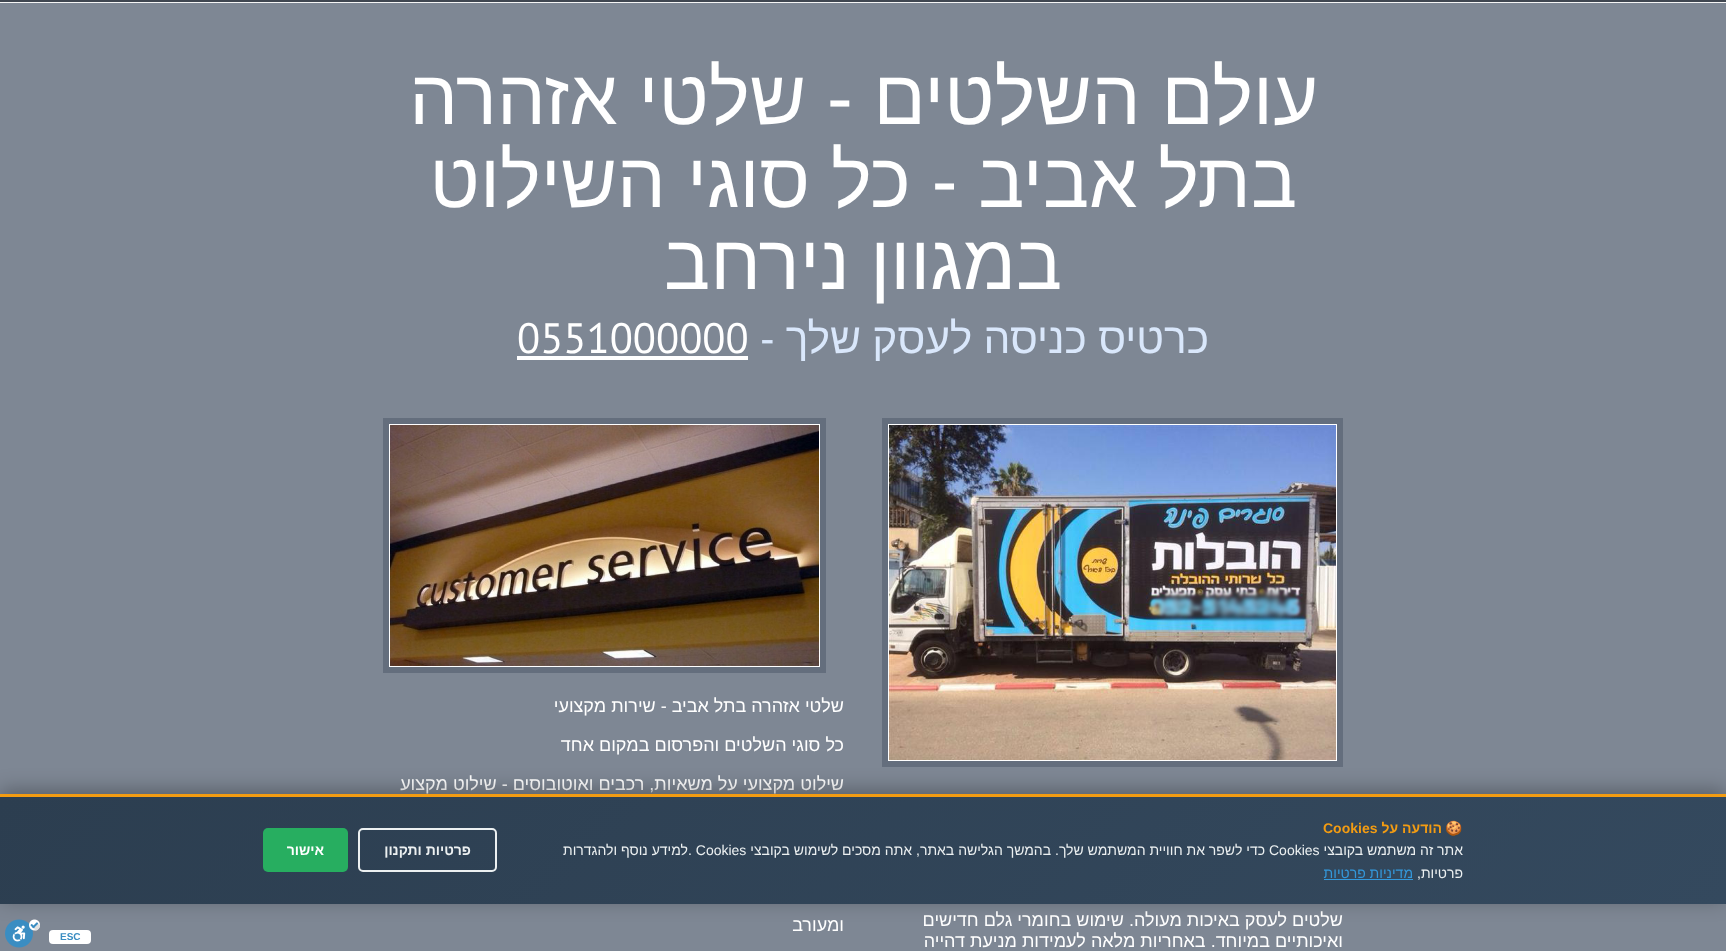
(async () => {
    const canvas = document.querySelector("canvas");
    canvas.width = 1726;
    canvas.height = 951;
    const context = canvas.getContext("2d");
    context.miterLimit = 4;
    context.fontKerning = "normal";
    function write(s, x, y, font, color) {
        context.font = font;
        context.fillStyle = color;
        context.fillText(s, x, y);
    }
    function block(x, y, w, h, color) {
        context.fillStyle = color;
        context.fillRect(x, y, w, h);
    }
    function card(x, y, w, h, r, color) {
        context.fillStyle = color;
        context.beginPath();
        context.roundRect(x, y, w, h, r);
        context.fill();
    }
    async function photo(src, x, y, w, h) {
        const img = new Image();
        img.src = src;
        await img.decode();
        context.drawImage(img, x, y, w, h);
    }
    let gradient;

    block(0, 0, 1726, 951, "rgb(126, 135, 148)");
    block(0, 0, 1726, 2, "rgb(64, 71, 81)");
    block(0, 2, 1726, 1, "rgb(246, 246, 246)");
    context.wordSpacing = "-0.5px";
    context.direction = "rtl";
    write("עולם השלטים - שלטי אזהרה", 1318, 124, "77.1px Liberation Sans", "rgb(255, 255, 255)");
    write("בתל אביב - כל סוגי השילוט", 1297, 207, "77.1px Liberation Sans", "rgb(255, 255, 255)");
    context.wordSpacing = "-1px";
    write("במגוון נירחב", 1062, 289, "77.1px Liberation Sans", "rgb(255, 255, 255)");
    context.wordSpacing = "-0.5px";
    write("כרטיס כניסה לעסק שלך -", 1209, 353, "42.5px Liberation Sans", "rgb(217, 231, 251)");
    context.wordSpacing = "0px";
    context.direction = "ltr";
    write("0551000000", 517, 353, "42.5px PT Sans", "rgb(255, 255, 255)");
    block(517, 356, 231, 4, "rgb(255, 255, 255)");
    context.beginPath();
    context.rect(885, 421, 455, 343);
    context.fill();
    context.strokeStyle = "rgb(100, 110, 125)";
    context.lineWidth = 6;
    context.stroke();
    await photo("media/1.png", 889, 425, 447, 335);
    context.direction = "rtl";
    write("שלטים לעסק באיכות מעולה. שימוש בחומרי גלם חדישים", 1343, 926, "18px Liberation Sans", "rgb(255, 255, 255)");
    write("ואיכותיים במיוחד. באחריות מלאה לעמידות מניעת דהייה", 1343, 947, "18px Liberation Sans", "rgb(255, 255, 255)");
    context.beginPath();
    context.rect(386, 421, 437, 249);
    context.fill();
    context.stroke();
    await photo("media/2.png", 390, 425, 429, 241);
    write("שלטי אזהרה בתל אביב - שירות מקצועי", 844, 712, "18px Liberation Sans", "rgb(255, 255, 255)");
    write("כל סוגי השלטים והפרסום במקום אחד", 844, 751, "18px Liberation Sans", "rgb(255, 255, 255)");
    write("שילוט מקצועי על משאיות, רכבים ואוטובוסים - שילוט מקצוע", 844, 790, "18px Liberation Sans", "rgb(255, 255, 255)");
    write("ומעורב", 844, 931, "18px Liberation Sans", "rgb(255, 255, 255)");
    context.fillStyle = "rgba(0, 0, 0, 0.3)";
    context.filter = "blur(10px)";
    context.beginPath();
    context.rect(0, 790, 1726, 110);
    context.fill();
    context.filter = "none";
    gradient = context.createLinearGradient(405, 392, 1321, 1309);
    gradient.addColorStop(0, "rgb(44, 62, 80)");
    gradient.addColorStop(1, "rgb(52, 73, 94)");
    context.fillStyle = gradient;
    context.fillRect(0, 797, 1726, 107);
    block(0, 794, 1726, 3, "rgb(243, 156, 18)");
    write("🍪", 1463, 833, "bold 14px Noto Color Emoji", "rgb(243, 156, 18)");
    write("הודעה על", 1442, 833, "bold 14px Liberation Sans", "rgb(243, 156, 18)");
    context.direction = "ltr";
    write("Cookies", 1323, 833, "bold 14px Liberation Sans", "rgb(243, 156, 18)");
    context.direction = "rtl";
    write("אתר זה משתמש בקובצי", 1463, 855, "14px Liberation Sans", "rgb(236, 240, 241)");
    context.direction = "ltr";
    write("Cookies", 1269, 855, "14px Liberation Sans", "rgb(236, 240, 241)");
    context.direction = "rtl";
    write("כדי לשפר את חוויית המשתמש שלך. בהמשך הגלישה באתר, אתה מסכים לשימוש בקובצי", 1265, 855, "14px Liberation Sans", "rgb(236, 240, 241)");
    context.direction = "ltr";
    write(". Cookies", 688, 855, "14px Liberation Sans", "rgb(236, 240, 241)");
    context.direction = "rtl";
    write("למידע נוסף ולהגדרות", 688, 855, "14px Liberation Sans", "rgb(236, 240, 241)");
    write("פרטיות,", 1463, 878, "14px Liberation Sans", "rgb(236, 240, 241)");
    write("מדיניות פרטיות", 1413, 878, "14px Liberation Sans", "rgb(52, 152, 219)");
    block(1324, 879, 89, 1, "rgb(52, 152, 219)");
    context.beginPath();
    context.roundRect(359, 829, 137, 42, 4);
    context.strokeStyle = "rgb(236, 240, 241)";
    context.lineWidth = 2;
    context.stroke();
    write("פרטיות ותקנון", 471, 855, "bold 14px Liberation Sans", "rgb(236, 240, 241)");
    card(263, 828, 85, 44, 5, "rgb(39, 174, 96)");
    write("אישור", 324, 855, "bold 14px Liberation Sans", "rgb(255, 255, 255)");
    card(49, 930, 42, 14, 4, "rgb(255, 255, 255)");
    context.direction = "ltr";
    write("ESC", 60, 940, "bold 10px Liberation Sans", "rgb(58, 141, 194)");
    await photo("media/3.png", 5, 919, 35, 29);
})();
